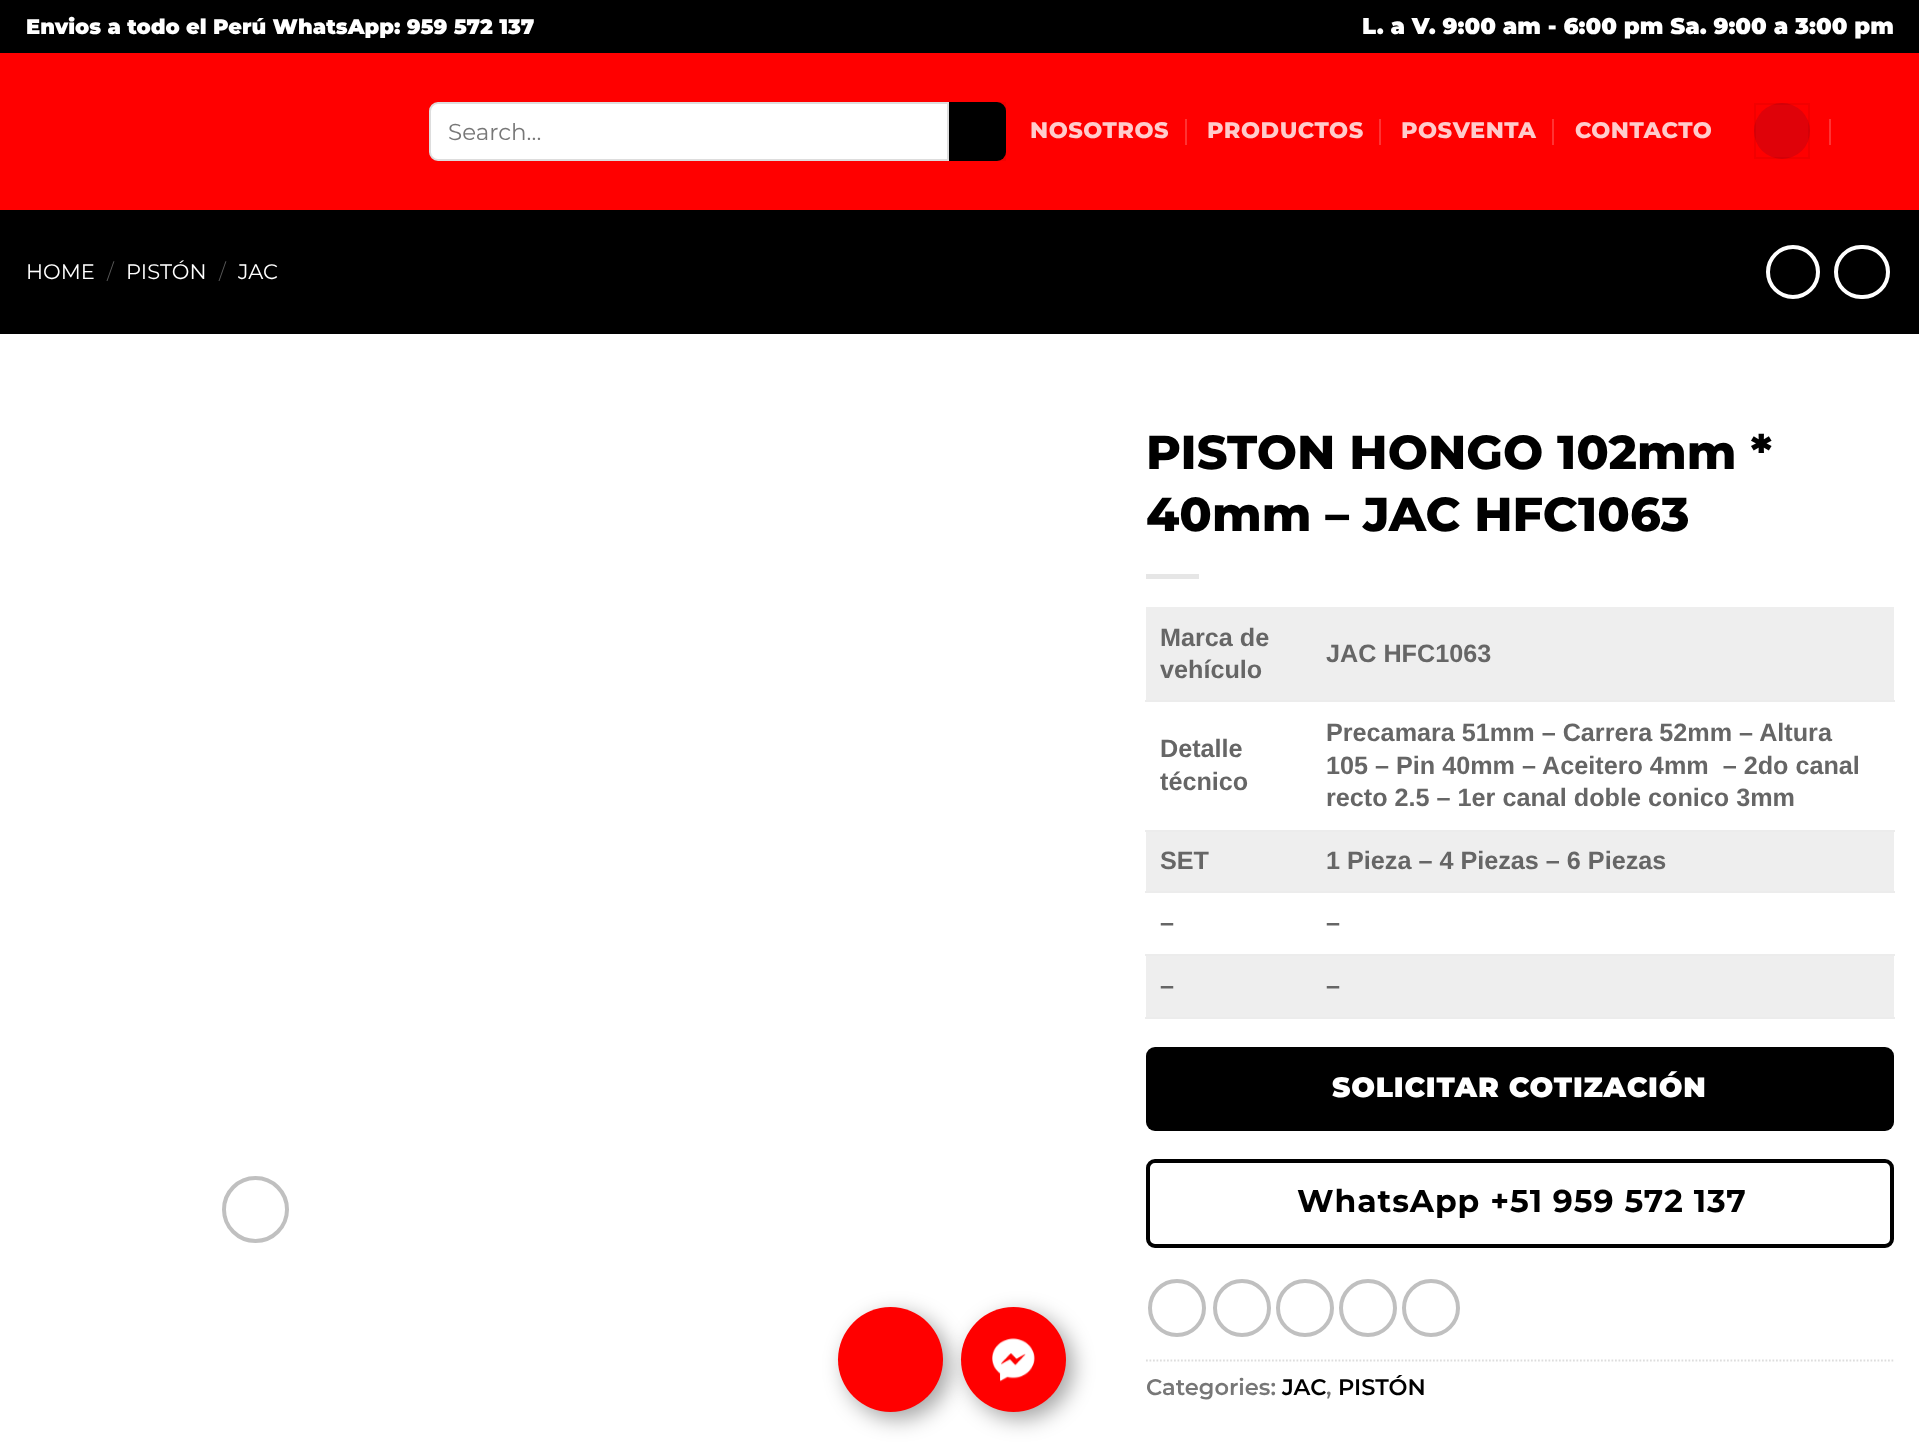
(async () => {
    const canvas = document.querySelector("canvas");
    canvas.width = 1919;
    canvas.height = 1446;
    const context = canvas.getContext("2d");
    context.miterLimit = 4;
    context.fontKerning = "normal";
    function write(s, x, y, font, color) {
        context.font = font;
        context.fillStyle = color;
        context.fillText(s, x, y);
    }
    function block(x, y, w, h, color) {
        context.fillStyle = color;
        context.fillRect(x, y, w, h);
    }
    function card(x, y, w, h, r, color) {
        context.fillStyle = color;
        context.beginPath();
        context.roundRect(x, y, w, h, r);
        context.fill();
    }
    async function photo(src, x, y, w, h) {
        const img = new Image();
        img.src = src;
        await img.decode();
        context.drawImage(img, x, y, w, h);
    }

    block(0, 0, 1919, 1446, "rgb(255, 255, 255)");
    block(0, 0, 1919, 53, "rgb(0, 0, 0)");
    write("Envios a todo el Perú WhatsApp: 959 572 137", 26, 34, "900 21px Montserrat", "rgb(255, 255, 255)");
    write("L. a V. 9:00 am - 6:00 pm Sa. 9:00 a 3:00 pm", 1362, 34, "900 22.75px Montserrat", "rgb(255, 255, 255)");
    block(0, 53, 1919, 157, "rgb(255, 0, 0)");
    context.fillStyle = "rgb(255, 255, 255)";
    context.beginPath();
    context.roundRect(430, 103, 518, 57, [8, 0, 0, 8]);
    context.fill();
    context.strokeStyle = "rgb(221, 221, 221)";
    context.lineWidth = 2;
    context.stroke();
    write("Search…", 448, 140, "23px Montserrat", "rgb(119, 119, 119)");
    context.fillStyle = "rgb(0, 0, 0)";
    context.beginPath();
    context.roundRect(949, 102, 57, 59, [0, 9, 9, 0]);
    context.fill();
    context.strokeStyle = "rgba(0, 0, 0, 0.05)";
    context.strokeRect(950, 103, 55, 57);
    context.letterSpacing = "0.5px";
    write("NOSOTROS", 1030, 138, "800 22.5px Montserrat", "rgb(255, 204, 204)");
    block(1185, 119, 2, 26, "rgb(255, 51, 51)");
    write("PRODUCTOS", 1207, 138, "800 22.5px Montserrat", "rgb(255, 204, 204)");
    block(1379, 119, 2, 26, "rgb(255, 51, 51)");
    write("POSVENTA", 1401, 138, "800 22.5px Montserrat", "rgb(255, 204, 204)");
    block(1552, 119, 2, 26, "rgb(255, 51, 51)");
    write("CONTACTO", 1575, 138, "800 22.5px Montserrat", "rgb(255, 204, 204)");
    context.fillStyle = "rgb(223, 2, 9)";
    context.beginPath();
    context.arc(1782, 131, 28, 0, Math.PI * 2);
    context.fill();
    context.strokeRect(1755, 104, 54, 54);
    block(1829, 119, 2, 26, "rgb(255, 51, 51)");
    block(0, 210, 1919, 124, "rgb(0, 0, 0)");
    context.letterSpacing = "0px";
    write("HOME", 26, 279, "21px Montserrat", "rgb(255, 255, 255)");
    write("/", 107, 279, "300 21px Montserrat", "rgb(89, 89, 89)");
    write("PISTÓN", 126, 279, "21px Montserrat", "rgb(255, 255, 255)");
    write("/", 219, 279, "300 21px Montserrat", "rgb(89, 89, 89)");
    write("JAC", 238, 279, "21px Montserrat", "rgb(255, 255, 255)");
    context.beginPath();
    context.arc(1793, 272, 25, 0, Math.PI * 2);
    context.strokeStyle = "rgb(255, 255, 255)";
    context.lineWidth = 4;
    context.stroke();
    context.beginPath();
    context.roundRect(1836, 247, 52, 50, 25);
    context.stroke();
    context.beginPath();
    context.arc(255.5, 1209.5, 31.5, 0, Math.PI * 2);
    context.strokeStyle = "rgb(192, 192, 192)";
    context.stroke();
    write("PISTON HONGO 102mm *", 1146, 469, "800 47.6px Montserrat", "rgb(0, 0, 0)");
    write("40mm – JAC HFC1063", 1146, 531, "800 47.6px Montserrat", "rgb(0, 0, 0)");
    block(1146, 574, 53, 5, "rgb(230, 230, 230)");
    block(1146, 607, 748, 93, "rgb(238, 238, 238)");
    write("Marca de", 1160, 646, "bold 25.2px Liberation Sans", "rgb(102, 102, 102)");
    write("vehículo", 1160, 678, "bold 25.2px Liberation Sans", "rgb(102, 102, 102)");
    block(1145, 700, 750, 2, "rgb(236, 236, 236)");
    write("JAC HFC1063", 1326, 662, "bold 25.2px Liberation Sans", "rgb(102, 102, 102)");
    write("Detalle", 1160, 757, "bold 25.2px Liberation Sans", "rgb(102, 102, 102)");
    write("técnico", 1160, 790, "bold 25.2px Liberation Sans", "rgb(102, 102, 102)");
    block(1145, 830, 750, 2, "rgb(236, 236, 236)");
    write("Precamara 51mm – Carrera 52mm – Altura", 1326, 741, "bold 25.2px Liberation Sans", "rgb(102, 102, 102)");
    write("105 – Pin 40mm – Aceitero 4mm  – 2do canal", 1326, 774, "bold 25.2px Liberation Sans", "rgb(102, 102, 102)");
    write("recto 2.5 – 1er canal doble conico 3mm", 1326, 806, "bold 25.2px Liberation Sans", "rgb(102, 102, 102)");
    block(1146, 832, 748, 59, "rgb(238, 238, 238)");
    write("SET", 1160, 869, "bold 25.2px Liberation Sans", "rgb(102, 102, 102)");
    block(1145, 891, 750, 2, "rgb(236, 236, 236)");
    write("1 Pieza – 4 Piezas – 6 Piezas", 1326, 869, "bold 25.2px Liberation Sans", "rgb(102, 102, 102)");
    write("–", 1160, 931, "bold 25.2px Liberation Sans", "rgb(102, 102, 102)");
    block(1145, 954, 750, 2, "rgb(236, 236, 236)");
    write("–", 1326, 931, "bold 25.2px Liberation Sans", "rgb(102, 102, 102)");
    block(1146, 956, 748, 61, "rgb(238, 238, 238)");
    write("–", 1160, 994, "bold 25.2px Liberation Sans", "rgb(102, 102, 102)");
    block(1145, 1017, 750, 2, "rgb(236, 236, 236)");
    write("–", 1326, 994, "bold 25.2px Liberation Sans", "rgb(102, 102, 102)");
    card(1146, 1047, 748, 84, 9, "rgb(0, 0, 0)");
    context.letterSpacing = "0.8px";
    write("SOLICITAR COTIZACIÓN", 1332, 1097, "900 28px Montserrat", "rgb(255, 255, 255)");
    context.beginPath();
    context.roundRect(1148, 1161, 744, 85, 7);
    context.strokeStyle = "rgb(0, 0, 0)";
    context.stroke();
    context.letterSpacing = "0.95px";
    write("WhatsApp +51 959 572 137", 1297, 1212, "bold 31.5px Montserrat", "rgb(0, 0, 0)");
    context.beginPath();
    context.arc(1177, 1308, 27, 0, Math.PI * 2);
    context.strokeStyle = "rgb(192, 192, 192)";
    context.stroke();
    context.beginPath();
    context.arc(1242, 1308, 27, 0, Math.PI * 2);
    context.stroke();
    context.beginPath();
    context.arc(1305, 1308, 27, 0, Math.PI * 2);
    context.stroke();
    context.beginPath();
    context.arc(1368, 1308, 27, 0, Math.PI * 2);
    context.stroke();
    context.beginPath();
    context.arc(1431, 1308, 27, 0, Math.PI * 2);
    context.stroke();
    context.beginPath();
    context.moveTo(1146, 1360.5);
    context.lineTo(1893.5, 1360.5);
    context.strokeStyle = "rgb(221, 221, 221)";
    context.lineWidth = 1.8;
    context.setLineDash([1.75, 1.75]);
    context.stroke();
    context.letterSpacing = "0px";
    write("Categories:", 1146, 1395, "600 22.5px Montserrat", "rgb(119, 119, 119)");
    write("JAC", 1282, 1395, "600 22.5px Montserrat", "rgb(0, 0, 0)");
    write(",", 1326, 1395, "600 22.5px Montserrat", "rgb(119, 119, 119)");
    write("PISTÓN", 1338, 1395, "600 22.5px Montserrat", "rgb(0, 0, 0)");
    context.fillStyle = "rgba(0, 0, 0, 0.36)";
    context.filter = "blur(10.5px)";
    context.beginPath();
    context.roundRect(845, 1314, 105, 105, 52.5);
    context.fill();
    context.filter = "none";
    context.fillStyle = "rgb(255, 0, 0)";
    context.beginPath();
    context.arc(890.5, 1359.5, 52.5, 0, Math.PI * 2);
    context.fill();
    context.fillStyle = "rgba(0, 0, 0, 0.36)";
    context.filter = "blur(10.5px)";
    context.beginPath();
    context.roundRect(968, 1314, 105, 105, 52.5);
    context.fill();
    context.filter = "none";
    context.fillStyle = "rgb(255, 0, 0)";
    context.beginPath();
    context.arc(1013.5, 1359.5, 52.5, 0, Math.PI * 2);
    context.fill();
    await photo("media/1.png", 992, 1338, 43, 44);
})();
